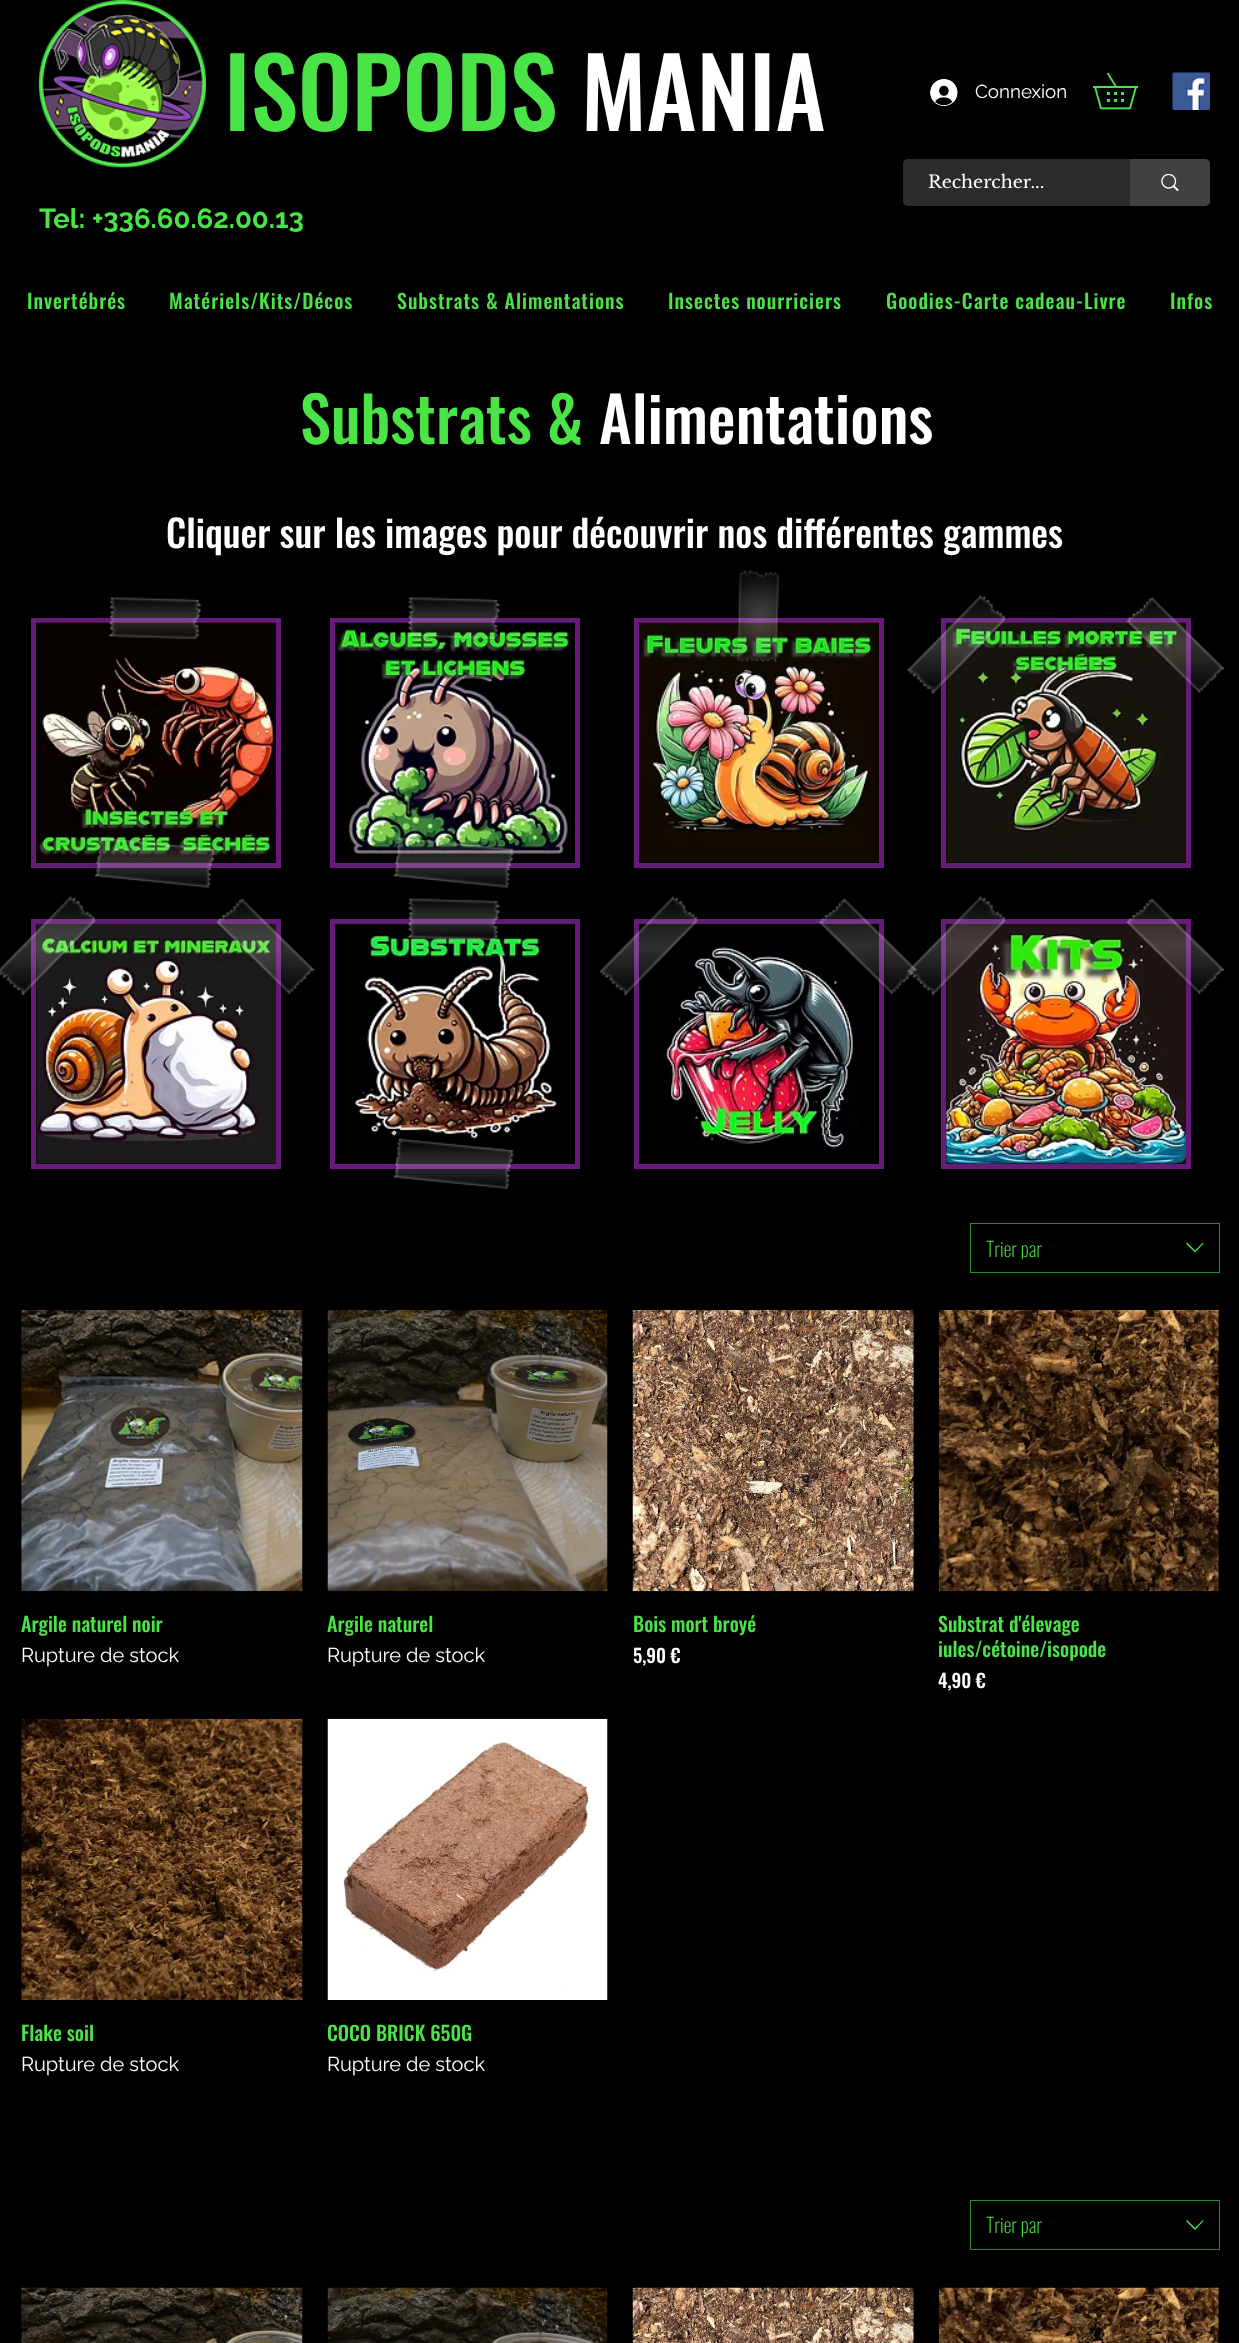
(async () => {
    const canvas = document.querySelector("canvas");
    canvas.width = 1239;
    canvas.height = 2343;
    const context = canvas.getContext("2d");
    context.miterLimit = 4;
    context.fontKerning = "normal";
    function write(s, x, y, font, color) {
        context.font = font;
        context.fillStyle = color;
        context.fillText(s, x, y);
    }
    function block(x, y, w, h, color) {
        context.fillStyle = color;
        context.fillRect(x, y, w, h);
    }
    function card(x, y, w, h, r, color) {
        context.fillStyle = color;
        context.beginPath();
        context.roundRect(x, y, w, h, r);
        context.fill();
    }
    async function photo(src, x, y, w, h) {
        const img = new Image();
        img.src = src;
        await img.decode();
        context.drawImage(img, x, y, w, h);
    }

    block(0, 0, 1239, 2343, "rgb(0, 0, 0)");
    await photo("media/1.png", 38, 0, 169, 168);
    write("ISOPODS", 224, 131, "500 96px Oswald", "rgb(74, 228, 71)");
    write("MANIA", 581, 131, "500 96px Oswald", "rgb(255, 255, 255)");
    await photo("media/2.png", 930, 79, 28, 27);
    write("Connexion", 975, 98, "18.75px Raleway", "rgb(255, 255, 255)");
    await photo("media/3.png", 1093, 72, 45, 38);
    await photo("media/4.png", 1172, 72, 38, 38);
    card(903, 159, 307, 47, 5, "rgb(43, 43, 43)");
    write("Rechercher...", 928, 188, "17.5px Libre Baskerville", "rgb(255, 255, 255)");
    context.fillStyle = "rgb(65, 65, 65)";
    context.beginPath();
    context.roundRect(1130, 159, 80, 47, [0, 5, 5, 0]);
    context.fill();
    await photo("media/5.png", 1161, 174, 18, 17);
    write("Tel: +336.60.62.00.13", 39, 228, "bold 27.5px Raleway", "rgb(74, 228, 71)");
    context.letterSpacing = "1px";
    write("Invertébrés", 27, 309, "500 20px Oswald", "rgb(74, 228, 71)");
    write("Matériels/Kits/Décos", 169, 309, "500 20px Oswald", "rgb(74, 228, 71)");
    write("Substrats & Alimentations", 397, 309, "500 20px Oswald", "rgb(74, 228, 71)");
    write("Insectes nourriciers", 668, 309, "500 20px Oswald", "rgb(74, 228, 71)");
    write("Goodies-Carte cadeau-Livre", 886, 309, "500 20px Oswald", "rgb(74, 228, 71)");
    write("Infos", 1170, 309, "500 20px Oswald", "rgb(74, 228, 71)");
    context.letterSpacing = "0px";
    write("Substrats &", 300, 444, "500 62.5px Oswald", "rgb(74, 228, 71)");
    write("Alimentations", 599, 444, "500 62.5px Oswald", "rgb(255, 255, 255)");
    write("Cliquer sur les images pour découvrir nos différentes gammes", 166, 548, "500 37.5px Oswald", "rgb(255, 255, 255)");
    context.strokeStyle = "rgb(102, 27, 121)";
    context.lineWidth = 5;
    context.strokeRect(33.5, 620.5, 245, 245);
    await photo("media/7.png", 36, 622, 241, 240);
    await photo("media/6.png", 108, 597, 94, 42);
    await photo("media/8.png", 94, 837, 121, 51);
    context.strokeRect(332.5, 620.5, 245, 245);
    await photo("media/10.png", 335, 622, 240, 234);
    await photo("media/9.png", 407, 597, 94, 44);
    await photo("media/11.png", 393, 837, 121, 51);
    context.strokeRect(636.5, 620.5, 245, 245);
    await photo("media/13.png", 638, 622, 241, 241);
    await photo("media/12.png", 736, 570, 43, 93);
    context.strokeRect(943.5, 620.5, 245, 245);
    await photo("media/16.png", 946, 622, 241, 241);
    await photo("media/14.png", 907, 595, 99, 99);
    await photo("media/15.png", 1126, 597, 99, 96);
    context.strokeRect(33.5, 921.5, 245, 245);
    await photo("media/19.png", 36, 923, 241, 241);
    await photo("media/17.png", 0, 896, 96, 100);
    await photo("media/18.png", 216, 898, 99, 96);
    context.strokeRect(332.5, 921.5, 245, 245);
    await photo("media/21.png", 335, 923, 240, 216);
    await photo("media/20.png", 407, 898, 94, 44);
    await photo("media/22.png", 393, 1138, 121, 51);
    context.strokeRect(636.5, 921.5, 245, 245);
    await photo("media/25.png", 638, 923, 241, 241);
    await photo("media/23.png", 600, 896, 99, 100);
    await photo("media/24.png", 818, 898, 99, 96);
    context.strokeRect(943.5, 921.5, 245, 245);
    await photo("media/28.png", 946, 923, 241, 241);
    await photo("media/26.png", 907, 896, 99, 100);
    await photo("media/27.png", 1126, 898, 99, 96);
    context.strokeStyle = "rgb(44, 137, 43)";
    context.lineWidth = 1;
    context.strokeRect(970.5, 1223.5, 249, 49);
    context.save();
    context.beginPath();
    context.rect(986, 1236, 189, 23);
    context.clip();
    write("Trier par", 986, 1257, "200 20px Oswald", "rgb(74, 228, 71)");
    context.restore();
    context.fillStyle = "rgb(74, 228, 71)";
    context.beginPath();
    context.moveTo(1203, 1242.5);
    context.lineTo(1203.5, 1243.5);
    context.lineTo(1195, 1252.5);
    context.lineTo(1186, 1243.5);
    context.lineTo(1187, 1242.5);
    context.lineTo(1195, 1250.5);
    context.closePath();
    context.fill("evenodd");
    await photo("media/29.png", 21, 1310, 282, 282);
    write("Argile naturel noir", 21, 1632, "500 20px Oswald", "rgb(74, 228, 71)");
    write("Rupture de stock", 21, 1662, "20px Raleway", "rgb(255, 255, 255)");
    await photo("media/30.png", 327, 1310, 281, 282);
    write("Argile naturel", 327, 1632, "500 20px Oswald", "rgb(74, 228, 71)");
    write("Rupture de stock", 327, 1662, "20px Raleway", "rgb(255, 255, 255)");
    await photo("media/31.png", 632, 1310, 282, 282);
    write("Bois mort broyé", 633, 1632, "500 20px Oswald", "rgb(74, 228, 71)");
    write("5,90 €", 633, 1663, "500 18.75px Oswald", "rgb(255, 255, 255)");
    await photo("media/32.png", 938, 1310, 281, 282);
    write("Substrat d'élevage", 938, 1632, "500 20px Oswald", "rgb(74, 228, 71)");
    write("iules/cétoine/isopode", 938, 1657, "500 20px Oswald", "rgb(74, 228, 71)");
    write("4,90 €", 938, 1688, "500 18.75px Oswald", "rgb(255, 255, 255)");
    await photo("media/33.png", 21, 1718, 282, 282);
    write("Flake soil", 21, 2041, "500 20px Oswald", "rgb(74, 228, 71)");
    write("Rupture de stock", 21, 2071, "20px Raleway", "rgb(255, 255, 255)");
    await photo("media/34.png", 327, 1718, 281, 282);
    write("COCO BRICK 650G", 327, 2041, "500 20px Oswald", "rgb(74, 228, 71)");
    write("Rupture de stock", 327, 2071, "20px Raleway", "rgb(255, 255, 255)");
    context.strokeRect(970.5, 2200.5, 249, 49);
    write("Trier par", 986, 2233, "200 20px Oswald", "rgb(74, 228, 71)");
    context.beginPath();
    context.moveTo(1203, 2220);
    context.lineTo(1203.5, 2221);
    context.lineTo(1195, 2230);
    context.lineTo(1186, 2221);
    context.lineTo(1187, 2220);
    context.lineTo(1195, 2228);
    context.closePath();
    context.fill("evenodd");
    await photo("media/35.png", 21, 2287, 282, 56);
    await photo("media/36.png", 327, 2287, 281, 56);
    await photo("media/37.png", 632, 2287, 282, 56);
    await photo("media/38.png", 938, 2287, 281, 56);
})();
